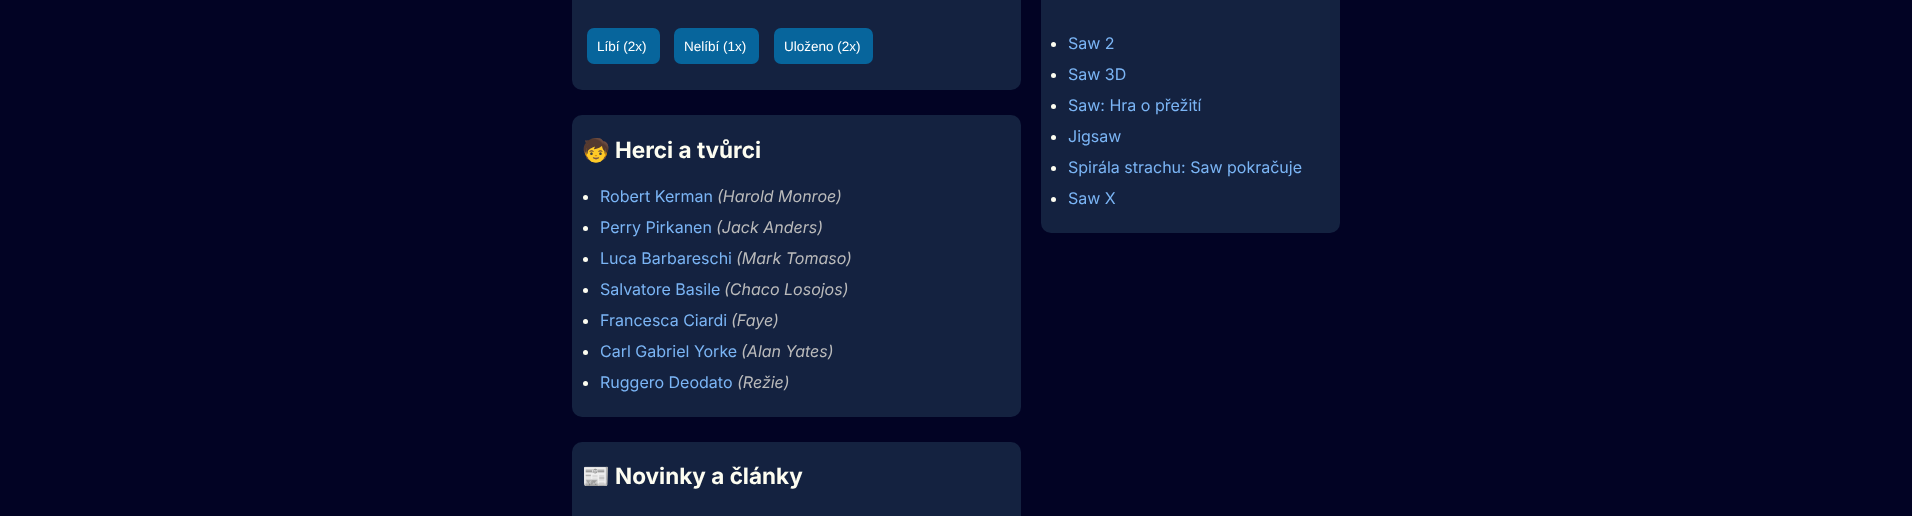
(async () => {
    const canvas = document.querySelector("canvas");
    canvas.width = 1912;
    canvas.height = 516;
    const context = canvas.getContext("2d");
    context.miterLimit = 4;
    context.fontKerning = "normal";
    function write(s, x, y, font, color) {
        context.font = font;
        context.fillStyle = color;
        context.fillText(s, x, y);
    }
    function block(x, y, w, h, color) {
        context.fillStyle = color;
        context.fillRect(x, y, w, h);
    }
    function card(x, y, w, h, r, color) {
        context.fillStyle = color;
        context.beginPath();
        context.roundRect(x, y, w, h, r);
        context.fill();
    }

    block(0, 0, 1912, 516, "rgb(2, 3, 36)");
    card(572, -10, 449, 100, 10, "rgb(20, 34, 64)");
    card(587, 28, 73, 36, 7, "rgb(7, 101, 156)");
    write("Líbí (2x)", 597, 51, "13.5px Liberation Sans", "rgb(255, 255, 255)");
    card(674, 28, 85, 36, 7, "rgb(7, 101, 156)");
    write("Nelíbí (1x)", 684, 51, "13.5px Liberation Sans", "rgb(255, 255, 255)");
    card(774, 28, 99, 36, 7, "rgb(7, 101, 156)");
    write("Uloženo (2x)", 784, 51, "13.5px Liberation Sans", "rgb(255, 255, 255)");
    card(572, 115, 449, 302, 10, "rgb(20, 34, 64)");
    write("🧒", 582, 158, "bold 22.5px Noto Color Emoji", "rgb(253, 253, 241)");
    write("Herci a tvůrci", 615, 158, "bold 22.5px Inter", "rgb(253, 253, 241)");
    context.beginPath();
    context.arc(585.5, 197.5, 2.5, 0, Math.PI * 2);
    context.fill();
    write("Robert Kerman", 600, 202, "16px Inter", "rgb(123, 181, 245)");
    write("(Harold Monroe)", 717, 202, "italic 16px Inter", "rgb(187, 187, 187)");
    context.fillStyle = "rgb(253, 253, 241)";
    context.beginPath();
    context.arc(585.5, 228.5, 2.5, 0, Math.PI * 2);
    context.fill();
    write("Perry Pirkanen", 600, 233, "16px Inter", "rgb(123, 181, 245)");
    write("(Jack Anders)", 716, 233, "italic 16px Inter", "rgb(187, 187, 187)");
    context.fillStyle = "rgb(253, 253, 241)";
    context.beginPath();
    context.arc(585.5, 259.5, 2.5, 0, Math.PI * 2);
    context.fill();
    write("Luca Barbareschi", 600, 264, "16px Inter", "rgb(123, 181, 245)");
    write("(Mark Tomaso)", 736, 264, "italic 16px Inter", "rgb(187, 187, 187)");
    context.fillStyle = "rgb(253, 253, 241)";
    context.beginPath();
    context.arc(585.5, 290.5, 2.5, 0, Math.PI * 2);
    context.fill();
    write("Salvatore Basile", 600, 295, "16px Inter", "rgb(123, 181, 245)");
    write("(Chaco Losojos)", 724, 295, "italic 16px Inter", "rgb(187, 187, 187)");
    context.fillStyle = "rgb(253, 253, 241)";
    context.beginPath();
    context.arc(585.5, 321.5, 2.5, 0, Math.PI * 2);
    context.fill();
    write("Francesca Ciardi", 600, 326, "16px Inter", "rgb(123, 181, 245)");
    write("(Faye)", 731, 326, "italic 16px Inter", "rgb(187, 187, 187)");
    context.fillStyle = "rgb(253, 253, 241)";
    context.beginPath();
    context.arc(585.5, 352.5, 2.5, 0, Math.PI * 2);
    context.fill();
    write("Carl Gabriel Yorke", 600, 357, "16px Inter", "rgb(123, 181, 245)");
    write("(Alan Yates)", 741, 357, "italic 16px Inter", "rgb(187, 187, 187)");
    context.fillStyle = "rgb(253, 253, 241)";
    context.beginPath();
    context.arc(585.5, 383.5, 2.5, 0, Math.PI * 2);
    context.fill();
    write("Ruggero Deodato", 600, 388, "16px Inter", "rgb(123, 181, 245)");
    write("(Režie)", 737, 388, "italic 16px Inter", "rgb(187, 187, 187)");
    card(572, 442, 449, 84, 10, "rgb(20, 34, 64)");
    write("📰", 582, 484, "bold 22.5px Noto Color Emoji", "rgb(253, 253, 241)");
    write("Novinky a články", 615, 484, "bold 22.5px Inter", "rgb(253, 253, 241)");
    card(1041, -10, 299, 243, 10, "rgb(20, 34, 64)");
    context.fillStyle = "rgb(253, 253, 241)";
    context.beginPath();
    context.arc(1053.5, 44.5, 2.5, 0, Math.PI * 2);
    context.fill();
    write("Saw 2", 1068, 49, "16px Inter", "rgb(123, 181, 245)");
    context.fillStyle = "rgb(253, 253, 241)";
    context.beginPath();
    context.arc(1053.5, 75.5, 2.5, 0, Math.PI * 2);
    context.fill();
    write("Saw 3D", 1068, 80, "16px Inter", "rgb(123, 181, 245)");
    context.fillStyle = "rgb(253, 253, 241)";
    context.beginPath();
    context.arc(1053.5, 106.5, 2.5, 0, Math.PI * 2);
    context.fill();
    write("Saw: Hra o přežití", 1068, 111, "16px Inter", "rgb(123, 181, 245)");
    context.fillStyle = "rgb(253, 253, 241)";
    context.beginPath();
    context.arc(1053.5, 137.5, 2.5, 0, Math.PI * 2);
    context.fill();
    write("Jigsaw", 1068, 142, "16px Inter", "rgb(123, 181, 245)");
    context.fillStyle = "rgb(253, 253, 241)";
    context.beginPath();
    context.arc(1053.5, 168.5, 2.5, 0, Math.PI * 2);
    context.fill();
    write("Spirála strachu: Saw pokračuje", 1068, 173, "16px Inter", "rgb(123, 181, 245)");
    context.fillStyle = "rgb(253, 253, 241)";
    context.beginPath();
    context.arc(1053.5, 199.5, 2.5, 0, Math.PI * 2);
    context.fill();
    write("Saw X", 1068, 204, "16px Inter", "rgb(123, 181, 245)");
})();
